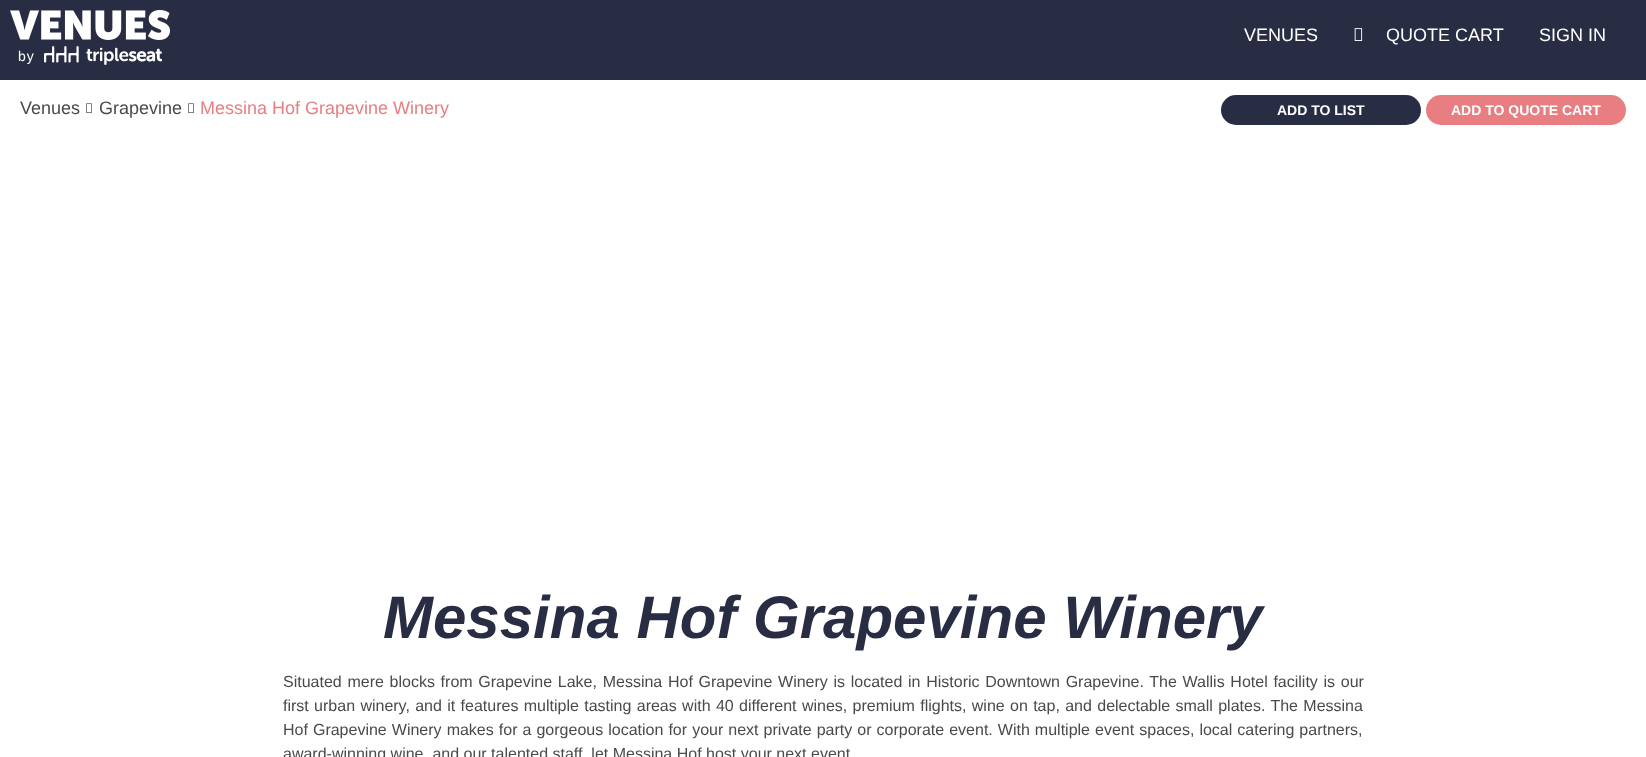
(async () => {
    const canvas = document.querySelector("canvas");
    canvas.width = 1646;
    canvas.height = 757;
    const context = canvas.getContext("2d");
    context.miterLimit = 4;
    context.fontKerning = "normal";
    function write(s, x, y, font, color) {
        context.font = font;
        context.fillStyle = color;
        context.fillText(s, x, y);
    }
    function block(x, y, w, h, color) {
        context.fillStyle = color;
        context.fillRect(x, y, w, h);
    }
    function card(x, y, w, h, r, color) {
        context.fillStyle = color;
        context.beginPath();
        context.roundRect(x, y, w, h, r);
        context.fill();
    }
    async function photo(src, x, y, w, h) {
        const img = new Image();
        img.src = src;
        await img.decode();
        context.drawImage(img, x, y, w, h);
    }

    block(0, 0, 1646, 757, "rgb(255, 255, 255)");
    block(0, 0, 1646, 80, "rgb(41, 45, 67)");
    write("VENUES", 1244, 41, "18px Liberation Sans", "rgb(255, 255, 255)");
    await photo("media/1.png", 1354, 28, 9, 13);
    write("QUOTE CART", 1386, 41, "18px Liberation Sans", "rgb(255, 255, 255)");
    write("SIGN IN", 1539, 41, "18px Liberation Sans", "rgb(255, 255, 255)");
    await photo("media/2.png", 10, 10, 160, 30);
    context.letterSpacing = "1px";
    write("by", 18, 61, "14px Liberation Sans", "rgb(255, 255, 255)");
    await photo("media/3.png", 44, 46, 118, 19);
    context.letterSpacing = "0px";
    write("Venues", 20, 114, "18px Liberation Sans", "rgb(74, 74, 74)");
    await photo("media/4.png", 86, 103, 6, 10);
    write("Grapevine", 99, 114, "18px Liberation Sans", "rgb(74, 74, 74)");
    await photo("media/4.png", 188, 103, 6, 10);
    write("Messina Hof Grapevine Winery", 200, 114, "18px Liberation Sans", "rgb(232, 126, 129)");
    card(1221, 95, 200, 30, 15, "rgb(41, 45, 67)");
    write("ADD TO LIST", 1277, 115, "bold 14px Liberation Sans", "rgb(255, 255, 255)");
    card(1426, 95, 200, 30, 15, "rgb(232, 126, 129)");
    write("ADD TO QUOTE CART", 1451, 115, "bold 14px Liberation Sans", "rgb(255, 255, 255)");
    write("Messina Hof Grapevine Winery", 383, 638, "italic bold 60px Liberation Sans", "rgb(41, 45, 68)");
    context.wordSpacing = "1.25px";
    write("Situated mere blocks from Grapevine Lake, Messina Hof Grapevine Winery is located in Historic Downtown Grapevine. The Wallis Hotel facility is our", 283, 687, "16px Liberation Sans", "rgb(74, 74, 74)");
    context.wordSpacing = "0.9px";
    write("first urban winery, and it features multiple tasting areas with 40 different wines, premium flights, wine on tap, and delectable small plates. The Messina", 283, 711, "16px Liberation Sans", "rgb(74, 74, 74)");
    context.wordSpacing = "0.6px";
    write("Hof Grapevine Winery makes for a gorgeous location for your next private party or corporate event. With multiple event spaces, local catering partners,", 283, 735, "16px Liberation Sans", "rgb(74, 74, 74)");
    context.wordSpacing = "0px";
    write("award-winning wine, and our talented staff, let Messina Hof host your next event", 283, 759, "16px Liberation Sans", "rgb(74, 74, 74)");
})();
